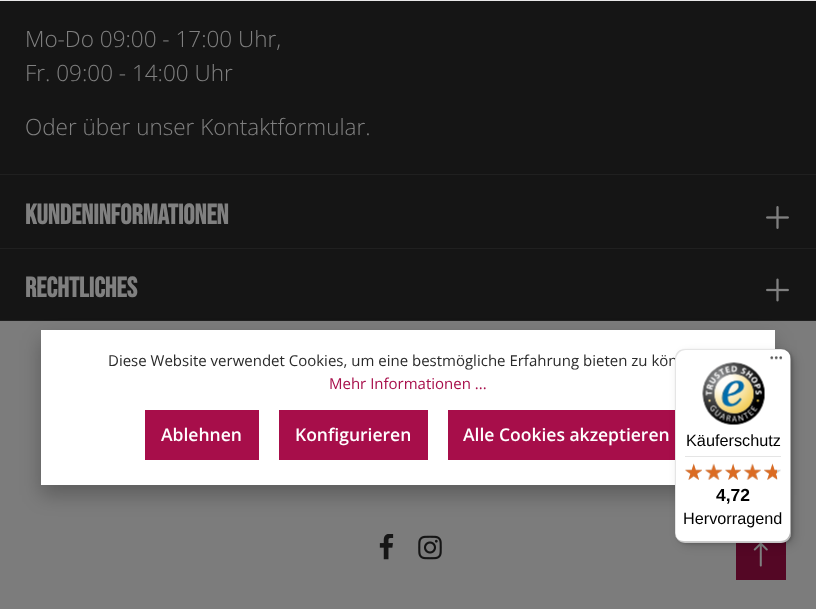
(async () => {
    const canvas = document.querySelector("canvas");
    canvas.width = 816;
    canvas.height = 609;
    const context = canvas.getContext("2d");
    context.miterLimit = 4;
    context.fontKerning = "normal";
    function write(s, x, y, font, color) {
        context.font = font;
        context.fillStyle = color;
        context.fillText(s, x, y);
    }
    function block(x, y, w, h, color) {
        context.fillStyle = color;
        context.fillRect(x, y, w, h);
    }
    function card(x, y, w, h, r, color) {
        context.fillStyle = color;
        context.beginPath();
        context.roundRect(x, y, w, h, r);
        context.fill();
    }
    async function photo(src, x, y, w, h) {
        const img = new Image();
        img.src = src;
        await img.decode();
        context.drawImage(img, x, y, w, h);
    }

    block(0, 0, 816, 609, "rgb(21, 21, 21)");
    block(0, 174, 816, 1, "rgb(32, 32, 32)");
    write("Mo-Do 09:00 - 17:00 Uhr,", 25, 47, "300 22.5px Open Sans", "rgb(128, 128, 128)");
    write("Fr. 09:00 - 14:00 Uhr", 25, 81, "300 22.5px Open Sans", "rgb(128, 128, 128)");
    write("Oder über unser Kontaktformular.", 25, 135, "300 22.5px Open Sans", "rgb(128, 128, 128)");
    block(0, 248, 816, 1, "rgb(32, 32, 32)");
    write("Kundeninformationen", 25, 224, "bold 28px Bebas Neue", "rgb(128, 128, 128)");
    await photo("media/1.png", 766, 206, 23, 23);
    block(0, 320, 816, 1, "rgb(32, 32, 32)");
    write("Rechtliches", 25, 297, "bold 28px Bebas Neue", "rgb(128, 128, 128)");
    await photo("media/2.png", 766, 278, 23, 24);
    block(0, 321, 816, 288, "rgb(124, 124, 124)");
    await photo("media/3.png", 379, 534, 15, 26);
    await photo("media/4.png", 418, 535, 24, 25);
    block(0, 0, 816, 1, "rgb(232, 231, 232)");
    context.fillStyle = "rgba(0, 0, 0, 0.25)";
    context.filter = "blur(10px)";
    context.beginPath();
    context.rect(41, 340, 734, 155);
    context.fill();
    context.filter = "none";
    block(41, 330, 734, 155, "rgb(255, 255, 255)");
    write("Diese Website verwendet Cookies, um eine bestmögliche Erfahrung bieten zu kön", 108, 366, "15px Open Sans", "rgb(42, 42, 42)");
    write("Mehr Informationen ...", 329, 389, "15px Open Sans", "rgb(167, 14, 74)");
    block(145, 410, 114, 50, "rgb(167, 14, 74)");
    write("Ablehnen", 161, 441, "600 17.5px Open Sans", "rgb(255, 255, 255)");
    block(279, 410, 149, 50, "rgb(167, 14, 74)");
    write("Konfigurieren", 295, 441, "600 17.5px Open Sans", "rgb(255, 255, 255)");
    block(448, 410, 227, 50, "rgb(167, 14, 74)");
    write("Alle Cookies akzeptieren", 463, 441, "600 17.5px Open Sans", "rgb(255, 255, 255)");
    block(736, 541, 50, 39, "rgb(84, 7, 37)");
    await photo("media/17.png", 753, 543, 15, 24);
    context.fillStyle = "rgba(0, 0, 0, 0.15)";
    context.filter = "blur(5px)";
    context.beginPath();
    context.roundRect(679, 353, 116, 193, 10);
    context.fill();
    context.filter = "none";
    context.filter = "blur(1px)";
    context.beginPath();
    context.roundRect(676, 350, 117, 194, 10);
    context.fill();
    context.filter = "none";
    card(675, 349, 116, 194, 10, "rgb(255, 255, 255)");
    context.fillStyle = "rgba(0, 0, 0, 0.1)";
    context.beginPath();
    context.moveTo(686, 350);
    context.lineTo(782, 350);
    context.bezierCurveTo(784, 350, 786, 350, 787, 351);
    context.bezierCurveTo(786, 350, 783, 349, 781, 349);
    context.lineTo(685, 349);
    context.bezierCurveTo(679, 349, 675, 353, 675, 359);
    context.lineTo(675, 533);
    context.bezierCurveTo(675, 537, 677, 540, 680, 542);
    context.bezierCurveTo(678, 540, 676, 537, 676, 534);
    context.lineTo(676, 360);
    context.bezierCurveTo(676, 354, 681, 350, 686, 350);
    context.closePath();
    context.fill();
    context.fillStyle = "rgba(0, 0, 0, 0.2)";
    context.beginPath();
    context.moveTo(676, 537);
    context.bezierCurveTo(678, 541, 681, 543, 685, 543);
    context.lineTo(781, 543);
    context.bezierCurveTo(787, 543, 791, 539, 791, 533);
    context.lineTo(791, 359);
    context.bezierCurveTo(791, 357, 790, 354, 789, 353);
    context.bezierCurveTo(790, 354, 790, 356, 790, 358);
    context.lineTo(790, 531);
    context.bezierCurveTo(790, 537, 786, 541, 780, 541);
    context.lineTo(684, 541);
    context.bezierCurveTo(681, 541, 678, 540, 676, 537);
    context.closePath();
    context.fill();
    context.fillStyle = "rgba(50, 50, 50, 0.2)";
    context.beginPath();
    context.moveTo(676, 538);
    context.bezierCurveTo(678, 541, 681, 543, 685, 543);
    context.lineTo(781, 543);
    context.bezierCurveTo(787, 543, 791, 539, 791, 533);
    context.lineTo(791, 359);
    context.bezierCurveTo(791, 357, 790, 354, 789, 353);
    context.bezierCurveTo(790, 354, 790, 356, 790, 358);
    context.lineTo(790, 532);
    context.bezierCurveTo(790, 537, 786, 542, 780, 542);
    context.lineTo(684, 542);
    context.bezierCurveTo(681, 542, 678, 540, 676, 538);
    context.closePath();
    context.fill();
    await photo("media/5.png", 770, 356, 13, 4);
    context.fillStyle = "rgba(255, 255, 255, 0.3)";
    context.beginPath();
    context.moveTo(676, 538);
    context.bezierCurveTo(678, 541, 681, 543, 685, 543);
    context.lineTo(781, 543);
    context.bezierCurveTo(787, 543, 791, 539, 791, 533);
    context.lineTo(791, 532);
    context.bezierCurveTo(791, 537, 786, 542, 781, 542);
    context.lineTo(684, 542);
    context.bezierCurveTo(681, 542, 678, 540, 676, 538);
    context.closePath();
    context.fill();
    await photo("media/6.png", 702, 362, 63, 63);
    write("Käuferschutz", 686, 446, "16.25px Liberation Sans", "rgb(0, 0, 0)");
    block(685, 456, 96, 1, "rgb(229, 229, 229)");
    await photo("media/12.png", 685, 464, 17, 16);
    await photo("media/7.png", 685, 463, 17, 17);
    await photo("media/13.png", 705, 464, 17, 16);
    await photo("media/8.png", 705, 463, 18, 17);
    await photo("media/14.png", 725, 464, 16, 16);
    await photo("media/9.png", 725, 463, 16, 17);
    await photo("media/15.png", 744, 464, 17, 16);
    await photo("media/10.png", 743, 463, 18, 17);
    await photo("media/16.png", 764, 464, 17, 16);
    await photo("media/11.png", 764, 463, 13, 17);
    write("4,72", 716, 501, "bold 17.5px Liberation Sans", "rgb(0, 0, 0)");
    write("Hervorragend", 683, 524, "16.25px Liberation Sans", "rgb(0, 0, 0)");
})();
